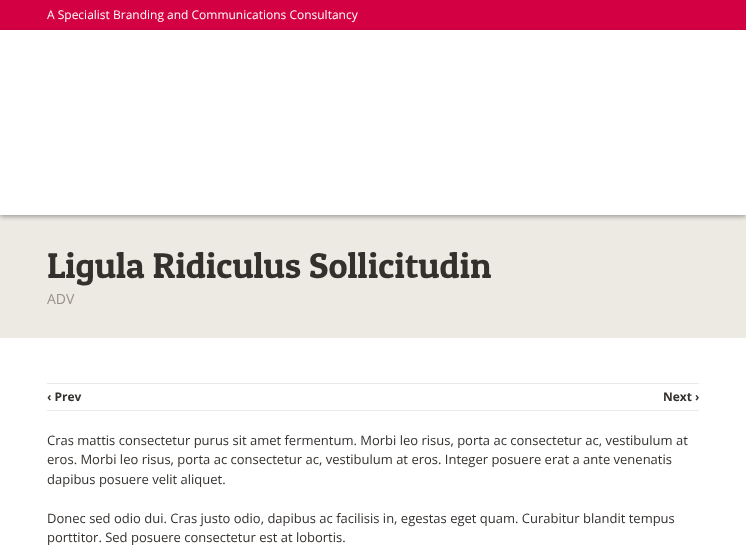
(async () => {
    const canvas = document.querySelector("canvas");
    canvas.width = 746;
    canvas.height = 547;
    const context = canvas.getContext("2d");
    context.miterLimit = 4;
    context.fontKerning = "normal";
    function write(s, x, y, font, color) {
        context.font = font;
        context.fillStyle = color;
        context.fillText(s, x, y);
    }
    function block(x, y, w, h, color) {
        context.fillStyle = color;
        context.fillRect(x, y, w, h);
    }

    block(0, 0, 746, 547, "rgb(211, 0, 68)");
    write("A Specialist Branding and Communications Consultancy", 47, 19, "12px Open Sans", "rgb(255, 255, 255)");
    block(0, 215, 746, 123, "rgb(237, 234, 227)");
    context.fillStyle = "rgba(0, 0, 0, 0.3)";
    context.filter = "blur(2px)";
    context.beginPath();
    context.rect(0, 32, 746, 185);
    context.fill();
    context.filter = "none";
    block(0, 30, 746, 185, "rgb(255, 255, 255)");
    write("Ligula Ridiculus Sollicitudin", 47, 278, "36px Patua One", "rgb(52, 48, 45)");
    write("ADV", 47, 304, "14px Open Sans", "rgb(152, 145, 140)");
    block(0, 338, 746, 209, "rgb(255, 255, 255)");
    block(47, 383, 652, 1, "rgb(234, 234, 234)");
    block(47, 410, 652, 1, "rgb(234, 234, 234)");
    write("‹ Prev", 47, 401, "bold 12px Open Sans", "rgb(52, 48, 45)");
    write("Next ›", 663, 401, "bold 12px Open Sans", "rgb(52, 48, 45)");
    write("Cras mattis consectetur purus sit amet fermentum. Morbi leo risus, porta ac consectetur ac, vestibulum at", 47, 445, "13px Open Sans", "rgb(52, 48, 45)");
    write("eros. Morbi leo risus, porta ac consectetur ac, vestibulum at eros. Integer posuere erat a ante venenatis", 47, 464, "13px Open Sans", "rgb(52, 48, 45)");
    write("dapibus posuere velit aliquet.", 47, 484, "13px Open Sans", "rgb(52, 48, 45)");
    write("Donec sed odio dui. Cras justo odio, dapibus ac facilisis in, egestas eget quam. Curabitur blandit tempus", 47, 523, "13px Open Sans", "rgb(52, 48, 45)");
    write("porttitor. Sed posuere consectetur est at lobortis.", 47, 542, "13px Open Sans", "rgb(52, 48, 45)");
})();
